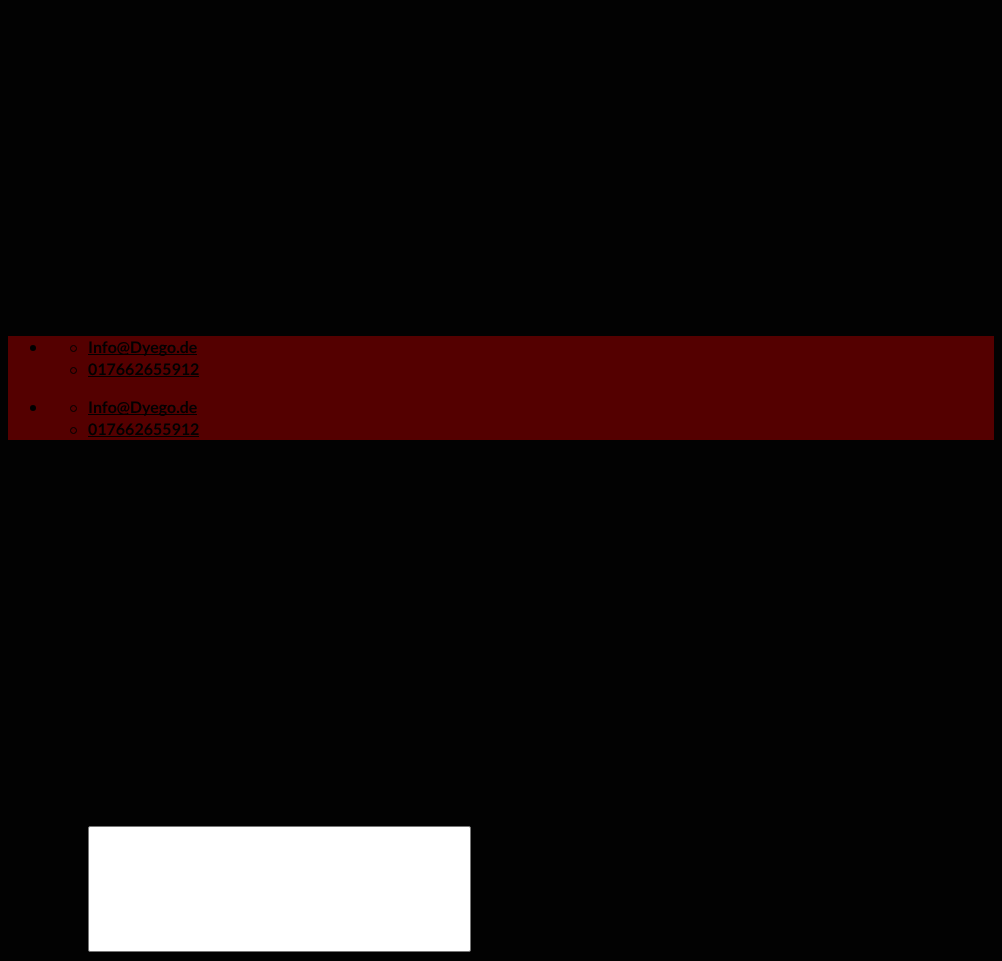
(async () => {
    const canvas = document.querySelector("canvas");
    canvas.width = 1002;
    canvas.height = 961;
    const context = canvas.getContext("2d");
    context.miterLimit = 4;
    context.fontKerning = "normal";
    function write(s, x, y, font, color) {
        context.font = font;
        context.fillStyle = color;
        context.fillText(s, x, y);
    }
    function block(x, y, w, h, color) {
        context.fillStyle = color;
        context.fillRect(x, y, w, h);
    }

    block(0, 0, 1002, 961, "rgb(2, 2, 2)");
    block(8, 336, 986, 104, "rgb(84, 0, 0)");
    context.fillStyle = "rgb(0, 0, 0)";
    context.beginPath();
    context.arc(33, 348, 3, 0, Math.PI * 2);
    context.fill();
    context.beginPath();
    context.arc(73.5, 348.5, 3, 0, Math.PI * 2);
    context.strokeStyle = "rgb(0, 0, 0)";
    context.stroke();
    block(88, 354, 109, 1, "rgb(2, 1, 1)");
    write("Info@Dyego.de", 88, 353, "bold 16px Lato", "rgb(2, 1, 1)");
    context.beginPath();
    context.arc(73.5, 370.5, 3, 0, Math.PI * 2);
    context.stroke();
    write("017662655912", 88, 375, "bold 16px Lato", "rgb(2, 1, 1)");
    block(88, 376, 111, 1, "rgb(2, 1, 1)");
    context.fillStyle = "rgb(0, 0, 0)";
    context.beginPath();
    context.arc(33, 408, 3, 0, Math.PI * 2);
    context.fill();
    context.beginPath();
    context.arc(73.5, 408.5, 3, 0, Math.PI * 2);
    context.stroke();
    block(88, 414, 109, 1, "rgb(2, 1, 1)");
    write("Info@Dyego.de", 88, 413, "bold 16px Lato", "rgb(2, 1, 1)");
    context.beginPath();
    context.arc(73.5, 430.5, 3, 0, Math.PI * 2);
    context.stroke();
    write("017662655912", 88, 435, "bold 16px Lato", "rgb(2, 1, 1)");
    block(88, 436, 111, 1, "rgb(2, 1, 1)");
    context.fillStyle = "rgb(255, 255, 255)";
    context.beginPath();
    context.roundRect(88.5, 826.5, 382, 125, 1.5);
    context.fill();
    context.strokeStyle = "rgb(118, 118, 118)";
    context.stroke();
})();
